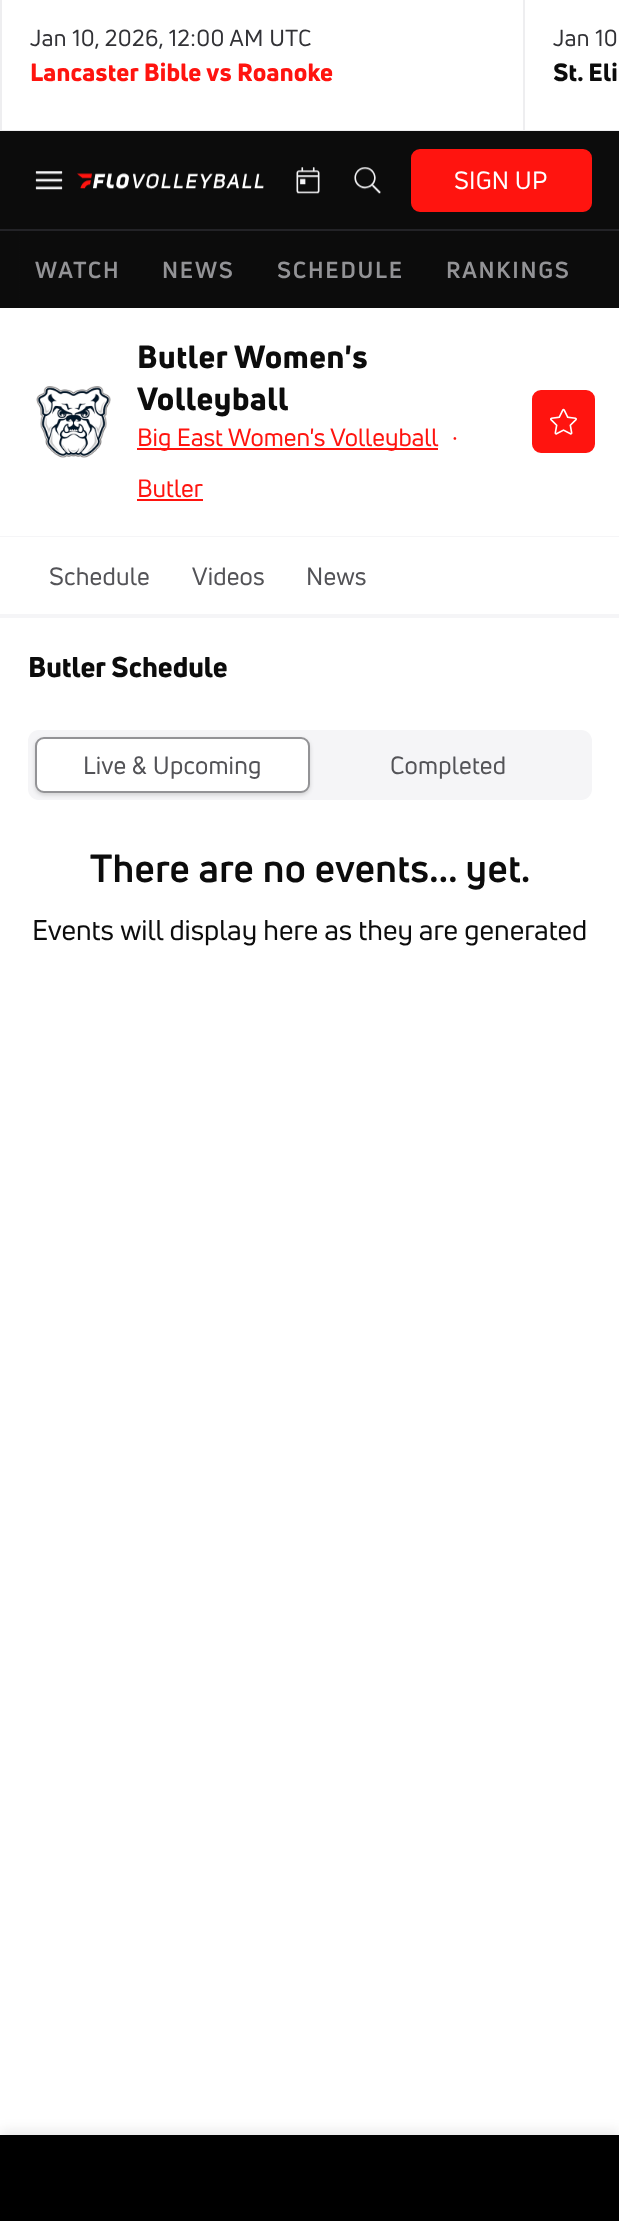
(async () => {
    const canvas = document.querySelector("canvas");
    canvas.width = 619;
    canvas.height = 2221;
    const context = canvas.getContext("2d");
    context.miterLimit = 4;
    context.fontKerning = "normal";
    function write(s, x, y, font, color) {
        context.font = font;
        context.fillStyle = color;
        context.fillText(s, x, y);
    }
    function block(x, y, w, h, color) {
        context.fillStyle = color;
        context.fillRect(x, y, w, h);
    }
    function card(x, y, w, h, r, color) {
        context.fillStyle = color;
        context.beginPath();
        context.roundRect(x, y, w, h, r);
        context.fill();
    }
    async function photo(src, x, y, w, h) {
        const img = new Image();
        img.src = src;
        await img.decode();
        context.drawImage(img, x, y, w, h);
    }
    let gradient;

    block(0, 0, 619, 2221, "rgb(245, 245, 247)");
    block(0, 130, 619, 1, "rgb(238, 238, 240)");
    block(2, 0, 617, 130, "rgb(255, 255, 255)");
    block(523, 0, 2, 130, "rgb(238, 238, 240)");
    block(0, 0, 2, 130, "rgb(238, 238, 240)");
    context.letterSpacing = "0.35px";
    write("Jan 10, 2026, 12:00 AM UTC", 30, 46, "22.75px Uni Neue", "rgb(50, 50, 54)");
    context.letterSpacing = "0.2px";
    write("Lancaster Bible vs Roanoke", 30, 81, "900 24.5px Uni Neue", "rgb(255, 20, 15)");
    context.letterSpacing = "0.35px";
    write("Jan 10", 553, 46, "22.75px Uni Neue", "rgb(50, 50, 54)");
    context.letterSpacing = "0.2px";
    write("St. Eli", 553, 81, "900 24.5px Uni Neue", "rgb(12, 12, 12)");
    block(0, 131, 619, 177, "rgb(12, 12, 12)");
    await photo("media/1.png", 35, 171, 28, 19);
    await photo("media/2.png", 77, 173, 187, 17);
    await photo("media/3.png", 296, 167, 24, 27);
    await photo("media/4.png", 354, 167, 27, 27);
    context.fillStyle = "rgb(255, 20, 15)";
    context.beginPath();
    context.roundRect(412, 150, 179, 61, 8);
    context.fill();
    context.strokeStyle = "rgb(255, 20, 15)";
    context.lineWidth = 2;
    context.stroke();
    write("SIGN UP", 454, 189, "24.5px Uni Neue", "rgb(255, 255, 255)");
    gradient = context.createLinearGradient(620, 270, 599, 270);
    gradient.addColorStop(0, "rgb(92, 92, 92)");
    gradient.addColorStop(1, "rgb(12, 12, 12)");
    context.fillStyle = gradient;
    context.fillRect(600, 231, 1, 77);
    gradient = context.createLinearGradient(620, 270, 0, 270);
    gradient.addColorStop(0, "rgb(12, 12, 12)");
    gradient.addColorStop(0.03, "rgb(12, 12, 12)");
    gradient.addColorStop(0.07, "rgba(12, 12, 12, 0)");
    context.fillStyle = gradient;
    context.fillRect(600, 231, 1, 77);
    gradient = context.createLinearGradient(0, 270, 21, 270);
    gradient.addColorStop(0, "rgb(92, 92, 92)");
    gradient.addColorStop(1, "rgb(12, 12, 12)");
    context.fillStyle = gradient;
    context.fillRect(19, 231, 1, 77);
    gradient = context.createLinearGradient(0, 270, 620, 270);
    gradient.addColorStop(0, "rgb(12, 12, 12)");
    gradient.addColorStop(0.03, "rgb(12, 12, 12)");
    gradient.addColorStop(0.07, "rgba(12, 12, 12, 0)");
    context.fillStyle = gradient;
    context.fillRect(19, 231, 1, 77);
    block(0, 229, 619, 2, "rgb(35, 35, 39)");
    context.letterSpacing = "1.75px";
    write("WATCH", 35, 278, "bold 22.75px Uni Neue", "rgb(147, 147, 150)");
    write("NEWS", 162, 278, "bold 22.75px Uni Neue", "rgb(147, 147, 150)");
    write("SCHEDULE", 277, 278, "bold 22.75px Uni Neue", "rgb(147, 147, 150)");
    write("RANKINGS", 446, 278, "bold 22.75px Uni Neue", "rgb(147, 147, 150)");
    block(0, 308, 619, 228, "rgb(255, 255, 255)");
    await photo("media/5.png", 36, 386, 75, 72);
    context.letterSpacing = "0.6px";
    write("Butler Women's", 137, 368, "900 31.5px Uni Neue", "rgb(12, 12, 12)");
    write("Volleyball", 137, 410, "900 31.5px Uni Neue", "rgb(12, 12, 12)");
    block(137, 448, 301, 2, "rgb(255, 20, 15)");
    context.letterSpacing = "0px";
    write("Big East Women's Volleyball", 137, 446, "24.5px Uni Neue", "rgb(255, 20, 15)");
    write("·", 452, 446, "24.5px Uni Neue", "rgb(255, 20, 15)");
    write("Butler", 137, 497, "24.5px Uni Neue", "rgb(255, 20, 15)");
    block(137, 499, 66, 2, "rgb(255, 20, 15)");
    context.beginPath();
    context.roundRect(533, 391, 61, 61, 8);
    context.fill();
    context.stroke();
    await photo("media/6.png", 550, 408, 27, 27);
    block(0, 537, 619, 77, "rgb(255, 255, 255)");
    context.letterSpacing = "0.2px";
    write("Schedule", 49, 585, "24.5px Uni Neue", "rgb(83, 83, 87)");
    write("Videos", 192, 585, "24.5px Uni Neue", "rgb(83, 83, 87)");
    write("News", 306, 585, "24.5px Uni Neue", "rgb(83, 83, 87)");
    block(0, 618, 619, 1517, "rgb(255, 255, 255)");
    context.letterSpacing = "0px";
    write("Butler Schedule", 28, 677, "900 28px Uni Neue", "rgb(12, 12, 12)");
    card(28, 730, 564, 70, 11, "rgb(245, 245, 247)");
    context.fillStyle = "rgba(0, 0, 0, 0.15)";
    context.filter = "blur(2px)";
    context.beginPath();
    context.roundRect(35, 739, 275, 56, 9);
    context.fill();
    context.filter = "none";
    context.fillStyle = "rgb(255, 255, 255)";
    context.beginPath();
    context.roundRect(36, 738, 273, 54, 8);
    context.fill();
    context.strokeStyle = "rgb(147, 147, 150)";
    context.stroke();
    context.letterSpacing = "0.2px";
    write("Live & Upcoming", 83, 774, "24.5px Uni Neue", "rgb(83, 83, 87)");
    write("Completed", 390, 774, "24.5px Uni Neue", "rgb(83, 83, 87)");
    context.letterSpacing = "0.35px";
    write("There are no events... yet.", 90, 882, "bold 38.5px Uni Neue", "rgb(12, 12, 12)");
    context.letterSpacing = "0px";
    write("Events will display here as they are generated", 32, 940, "28px Uni Neue", "rgb(12, 12, 12)");
    context.fillStyle = "rgba(0, 0, 0, 0.1)";
    context.filter = "blur(7px)";
    context.beginPath();
    context.rect(0, 2132, 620, 87);
    context.fill();
    context.filter = "none";
    block(0, 2135, 619, 86, "rgb(0, 0, 0)");
})();
